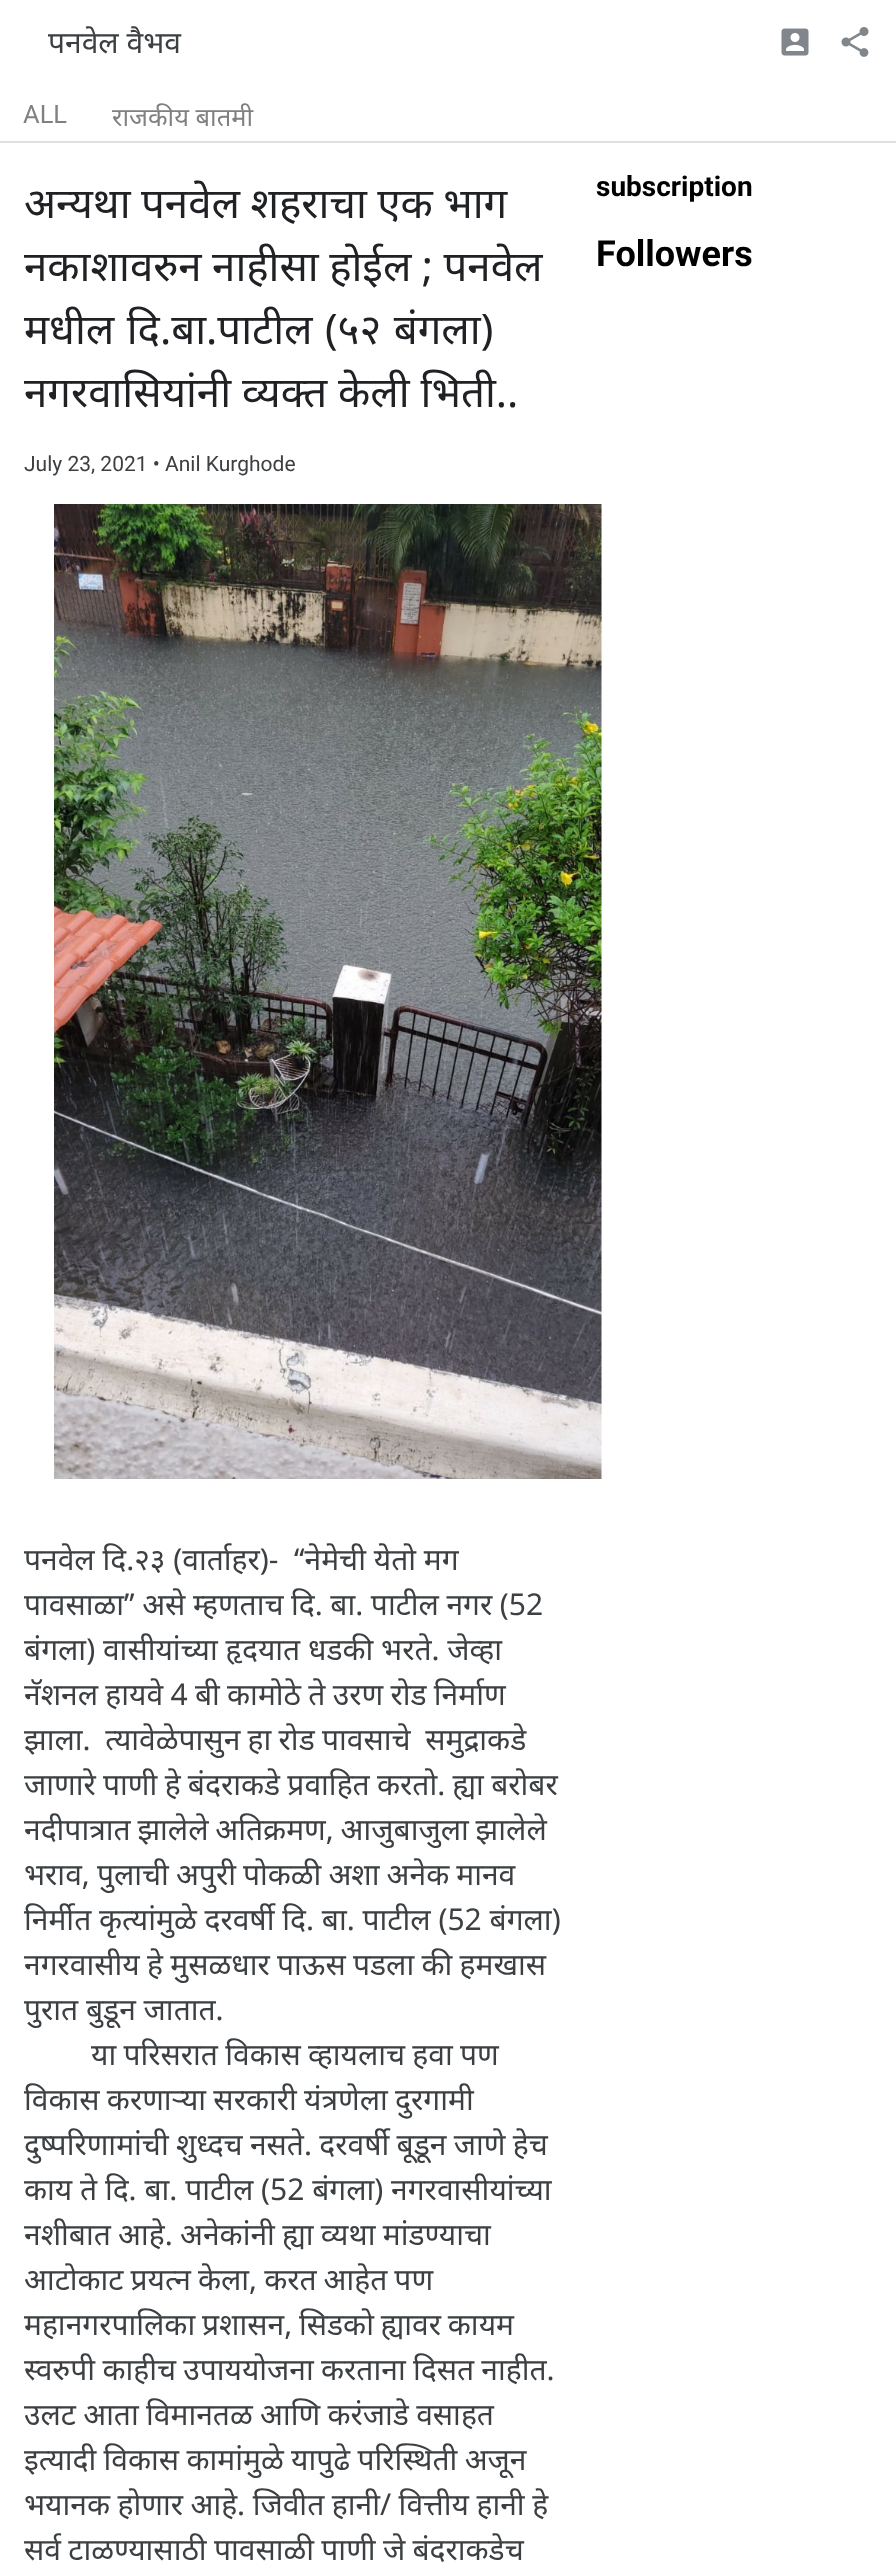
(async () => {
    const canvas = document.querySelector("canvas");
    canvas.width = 896;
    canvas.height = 2569;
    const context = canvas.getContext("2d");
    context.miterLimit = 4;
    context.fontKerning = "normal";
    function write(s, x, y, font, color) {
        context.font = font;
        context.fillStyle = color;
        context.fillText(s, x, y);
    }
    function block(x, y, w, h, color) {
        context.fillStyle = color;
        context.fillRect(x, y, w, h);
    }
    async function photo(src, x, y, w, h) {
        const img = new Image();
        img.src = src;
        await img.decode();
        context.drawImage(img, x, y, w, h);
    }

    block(0, 0, 896, 2569, "rgb(255, 255, 255)");
    block(0, 141, 896, 2, "rgb(224, 224, 224)");
    write("पनवेल वैभव", 48, 53, "30px Noto Sans", "rgb(60, 64, 67)");
    await photo("media/1.png", 781, 28, 28, 28);
    await photo("media/2.png", 841, 27, 28, 30);
    write("ALL", 23, 123, "25.5px Roboto", "rgb(128, 128, 128)");
    write("राजकीय बातमी", 112, 126, "25.5px Noto Sans", "rgb(128, 128, 128)");
    context.wordSpacing = "-0.5px";
    write("अन्यथा पनवेल शहराचा एक भाग", 24, 218, "42px Noto Sans", "rgb(32, 33, 36)");
    write("नकाशावरुन नाहीसा होईल ; पनवेल", 24, 281, "42px Noto Sans", "rgb(32, 33, 36)");
    context.wordSpacing = "1.5px";
    write("मधील दि.बा.पाटील (५२ बंगला)", 24, 344, "42px Noto Sans", "rgb(32, 33, 36)");
    context.wordSpacing = "0px";
    write("नगरवासियांनी व्यक्त केली भिती..", 24, 407, "42px Noto Sans", "rgb(32, 33, 36)");
    write("July 23, 2021 • Anil Kurghode", 24, 471, "21px Roboto", "rgb(60, 64, 67)");
    await photo("media/3.png", 54, 504, 548, 975);
    write("पनवेल दि.२३ (वार्ताहर)-  ‘‘नेमेची येतो मग", 24, 1570, "30px Noto Sans", "rgb(60, 64, 67)");
    context.wordSpacing = "-0.25px";
    write("पावसाळा’’ असे म्हणताच दि. बा. पाटील नगर (52", 24, 1615, "30px Noto Sans", "rgb(60, 64, 67)");
    context.wordSpacing = "0px";
    write("बंगला) वासीयांच्या हृदयात धडकी भरते. जेव्हा", 24, 1660, "30px Noto Sans", "rgb(60, 64, 67)");
    context.wordSpacing = "-0.5px";
    write("नॅशनल हायवे 4 बी कामोठे ते उरण रोड निर्माण", 24, 1705, "30px Noto Sans", "rgb(60, 64, 67)");
    write("झाला.  त्यावेळेपासुन हा रोड पावसाचे  समुद्राकडे", 24, 1750, "30px Noto Sans", "rgb(60, 64, 67)");
    write("जाणारे पाणी हे बंदराकडे प्रवाहित करतो. ह्या बरोबर", 24, 1795, "30px Noto Sans", "rgb(60, 64, 67)");
    context.wordSpacing = "-1px";
    write("नदीपात्रात झालेले अतिक्रमण, आजुबाजुला झालेले", 24, 1840, "30px Noto Sans", "rgb(60, 64, 67)");
    context.wordSpacing = "-0.75px";
    write("भराव, पुलाची अपुरी पोकळी अशा अनेक मानव", 24, 1885, "30px Noto Sans", "rgb(60, 64, 67)");
    context.wordSpacing = "0px";
    write("निर्मीत कृत्यांमुळे दरवर्षी दि. बा. पाटील (52 बंगला)", 24, 1930, "30px Noto Sans", "rgb(60, 64, 67)");
    context.wordSpacing = "-0.5px";
    write("नगरवासीय हे मुसळधार पाऊस पडला की हमखास", 24, 1975, "30px Noto Sans", "rgb(60, 64, 67)");
    context.wordSpacing = "0px";
    write("पुरात बुडून जातात.", 24, 2020, "30px Noto Sans", "rgb(60, 64, 67)");
    context.wordSpacing = "-0.5px";
    write("या परिसरात विकास व्हायलाच हवा पण", 91, 2065, "30px Noto Sans", "rgb(60, 64, 67)");
    write("विकास करणार्‍या सरकारी यंत्रणेला दुरगामी", 24, 2110, "30px Noto Sans", "rgb(60, 64, 67)");
    write("दुष्परिणामांची शुध्दच नसते. दरवर्षी बूडून जाणे हेच", 24, 2155, "30px Noto Sans", "rgb(60, 64, 67)");
    context.wordSpacing = "0px";
    write("काय ते दि. बा. पाटील (52 बंगला) नगरवासीयांच्या", 24, 2200, "30px Noto Sans", "rgb(60, 64, 67)");
    context.wordSpacing = "-0.5px";
    write("नशीबात आहे. अनेकांनी ह्या व्यथा मांडण्याचा", 24, 2245, "30px Noto Sans", "rgb(60, 64, 67)");
    context.wordSpacing = "-0.75px";
    write("आटोकाट प्रयत्न केला, करत आहेत पण", 24, 2290, "30px Noto Sans", "rgb(60, 64, 67)");
    context.wordSpacing = "-1px";
    write("महानगरपालिका प्रशासन, सिडको ह्यावर कायम", 24, 2335, "30px Noto Sans", "rgb(60, 64, 67)");
    context.wordSpacing = "-0.5px";
    write("स्वरुपी काहीच उपाययोजना करताना दिसत नाहीत.", 24, 2380, "30px Noto Sans", "rgb(60, 64, 67)");
    write("उलट आता विमानतळ आणि करंजाडे वसाहत", 24, 2425, "30px Noto Sans", "rgb(60, 64, 67)");
    write("इत्यादी विकास कामांमुळे यापुढे परिस्थिती अजून", 24, 2470, "30px Noto Sans", "rgb(60, 64, 67)");
    context.wordSpacing = "-0.25px";
    write("भयानक होणार आहे. जिवीत हानी/ वित्तीय हानी हे", 24, 2515, "30px Noto Sans", "rgb(60, 64, 67)");
    context.wordSpacing = "-0.5px";
    write("सर्व टाळण्यासाठी पावसाळी पाणी जे बंदराकडेच", 24, 2560, "30px Noto Sans", "rgb(60, 64, 67)");
    context.wordSpacing = "0px";
    write("subscription", 596, 196, "bold 28px Roboto", "rgb(0, 0, 0)");
    write("Followers", 596, 266, "bold 36px Roboto", "rgb(0, 0, 0)");
})();
